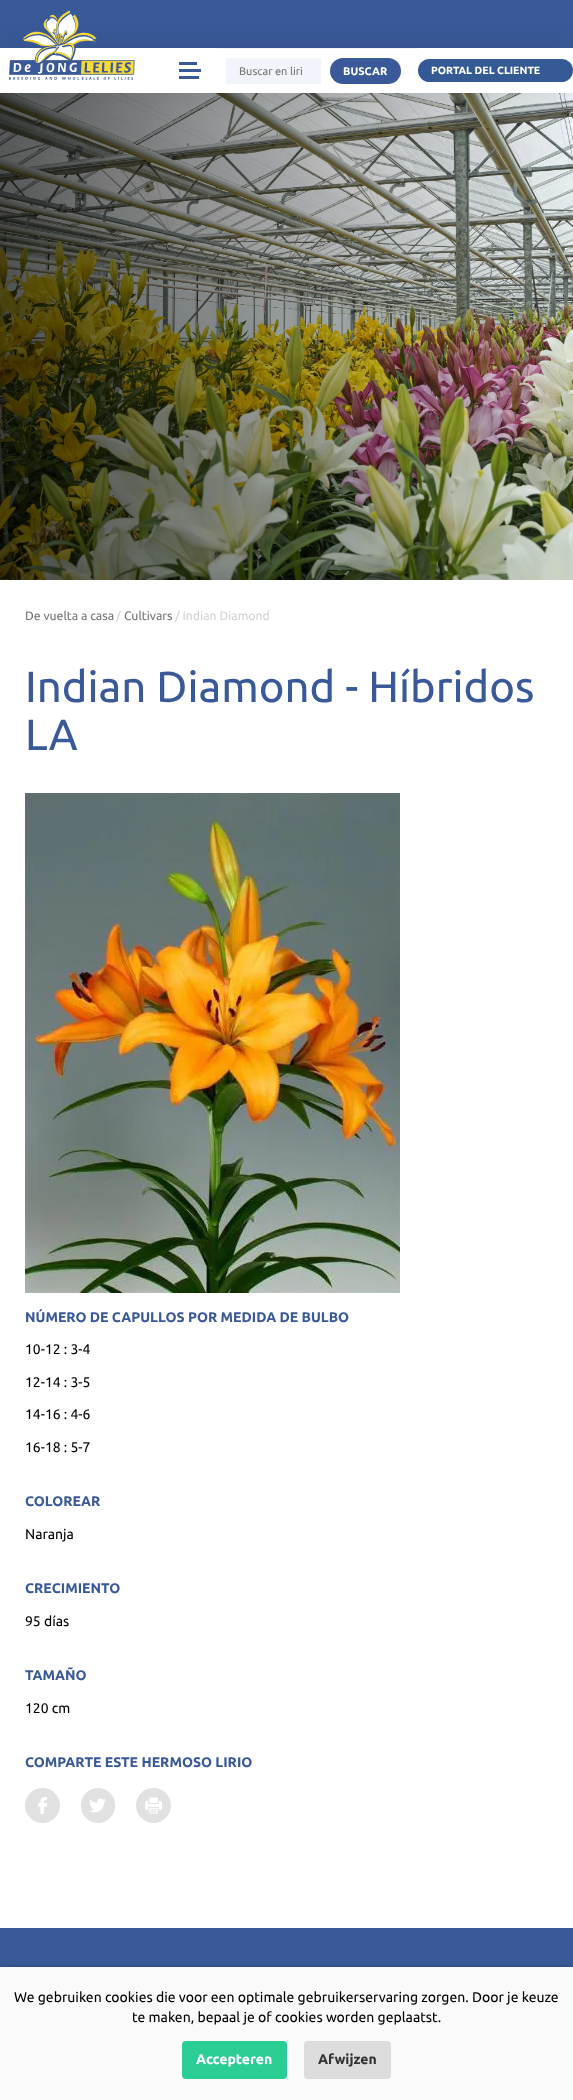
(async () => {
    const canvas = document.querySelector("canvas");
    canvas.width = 573;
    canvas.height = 2100;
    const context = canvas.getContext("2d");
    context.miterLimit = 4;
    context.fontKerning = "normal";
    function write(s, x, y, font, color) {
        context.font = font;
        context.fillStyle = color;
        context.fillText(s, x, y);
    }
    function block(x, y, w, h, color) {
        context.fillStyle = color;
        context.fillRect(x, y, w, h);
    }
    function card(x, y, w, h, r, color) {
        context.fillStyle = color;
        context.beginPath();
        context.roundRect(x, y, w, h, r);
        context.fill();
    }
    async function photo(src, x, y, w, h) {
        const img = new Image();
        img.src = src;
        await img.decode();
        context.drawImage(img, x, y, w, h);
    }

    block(0, 0, 573, 2100, "rgb(255, 255, 255)");
    block(0, 0, 573, 48, "rgb(58, 89, 152)");
    await photo("media/2.png", 0, 93, 573, 487);
    context.fillStyle = "rgba(0, 0, 0, 0.1)";
    context.filter = "blur(15px)";
    context.beginPath();
    context.rect(0, 48, 573, 45);
    context.fill();
    context.filter = "none";
    block(0, 48, 573, 45, "rgb(255, 255, 255)");
    await photo("media/1.png", 9, 10, 126, 70);
    block(179, 69, 22, 3, "rgb(58, 89, 152)");
    block(179, 62, 18, 3, "rgb(58, 89, 152)");
    block(179, 76, 20, 3, "rgb(58, 89, 152)");
    block(217, 48, 201, 1, "rgb(241, 244, 250)");
    card(226, 58, 95, 26, 1.5, "rgb(241, 244, 250)");
    write("Buscar en liri", 239, 75, "11px Ubuntu", "rgb(117, 117, 117)");
    card(330, 58, 71, 26, 13, "rgb(58, 89, 152)");
    write("BUSCAR", 343, 75, "bold 11px Ubuntu", "rgb(255, 255, 255)");
    card(418, 59, 155, 23, 11.5, "rgb(52, 90, 149)");
    write("PORTAL DEL CLIENTE", 431, 74, "bold 10.5px Ubuntu", "rgb(255, 255, 255)");
    write("De vuelta a casa", 25, 620, "12.25px Ubuntu", "rgb(117, 117, 117)");
    write("/", 116, 620, "12.25px Ubuntu", "rgb(210, 210, 210)");
    write("Cultivars", 124, 620, "12.25px Ubuntu", "rgb(117, 117, 117)");
    write("/ Indian Diamond", 175, 620, "12.25px Ubuntu", "rgb(210, 210, 210)");
    write("Indian Diamond - Híbridos", 25, 702, "43.6px Ubuntu", "rgb(58, 89, 152)");
    write("LA", 25, 750, "43.6px Ubuntu", "rgb(58, 89, 152)");
    await photo("media/3.png", 25, 793, 375, 500);
    write("NÚMERO DE CAPULLOS POR MEDIDA DE BULBO", 25, 1322, "bold 13.95px Ubuntu", "rgb(58, 89, 152)");
    write("10-12 : 3-4", 25, 1354, "13.95px Ubuntu", "rgb(0, 0, 0)");
    write("12-14 : 3-5", 25, 1387, "13.95px Ubuntu", "rgb(0, 0, 0)");
    write("14-16 : 4-6", 25, 1419, "13.95px Ubuntu", "rgb(0, 0, 0)");
    write("16-18 : 5-7", 25, 1452, "13.95px Ubuntu", "rgb(0, 0, 0)");
    write("COLOREAR", 25, 1506, "bold 13.95px Ubuntu", "rgb(58, 89, 152)");
    write("Naranja", 25, 1539, "13.95px Ubuntu", "rgb(0, 0, 0)");
    write("CRECIMIENTO", 25, 1593, "bold 13.95px Ubuntu", "rgb(58, 89, 152)");
    write("95 días", 25, 1626, "13.95px Ubuntu", "rgb(0, 0, 0)");
    write("TAMAÑO", 25, 1680, "bold 13.95px Ubuntu", "rgb(58, 89, 152)");
    write("120 cm", 25, 1713, "13.95px Ubuntu", "rgb(0, 0, 0)");
    write("COMPARTE ESTE HERMOSO LIRIO", 25, 1767, "bold 13.95px Ubuntu", "rgb(58, 89, 152)");
    context.fillStyle = "rgb(225, 225, 225)";
    context.beginPath();
    context.arc(42.5, 1805.5, 17.5, 0, Math.PI * 2);
    context.fill();
    await photo("media/4.png", 38, 1797, 9, 17);
    card(81, 1788, 34, 35, 17, "rgb(225, 225, 225)");
    await photo("media/5.png", 89, 1798, 17, 15);
    context.beginPath();
    context.arc(153.5, 1805.5, 17.5, 0, Math.PI * 2);
    context.fill();
    await photo("media/6.png", 145, 1797, 17, 17);
    block(0, 1928, 573, 39, "rgb(58, 89, 152)");
    context.fillStyle = "rgba(0, 0, 0, 0.25)";
    context.filter = "blur(2.5px)";
    context.beginPath();
    context.rect(0, 1967, 573, 133);
    context.fill();
    context.filter = "none";
    block(0, 1967, 573, 133, "rgb(250, 250, 250)");
    write("We gebruiken cookies die voor een optimale gebruikerservaring zorgen. Door je keuze", 14, 2002, "14px Ubuntu", "rgb(0, 0, 0)");
    write("te maken, bepaal je of cookies worden geplaatst.", 132, 2022, "14px Ubuntu", "rgb(0, 0, 0)");
    card(182, 2041, 105, 38, 4, "rgb(42, 205, 148)");
    write("Accepteren", 196, 2064, "bold 14px Ubuntu", "rgb(255, 255, 255)");
    card(304, 2041, 87, 38, 4, "rgb(221, 221, 221)");
    write("Afwijzen", 318, 2064, "bold 14px Ubuntu", "rgb(51, 51, 51)");
})();
